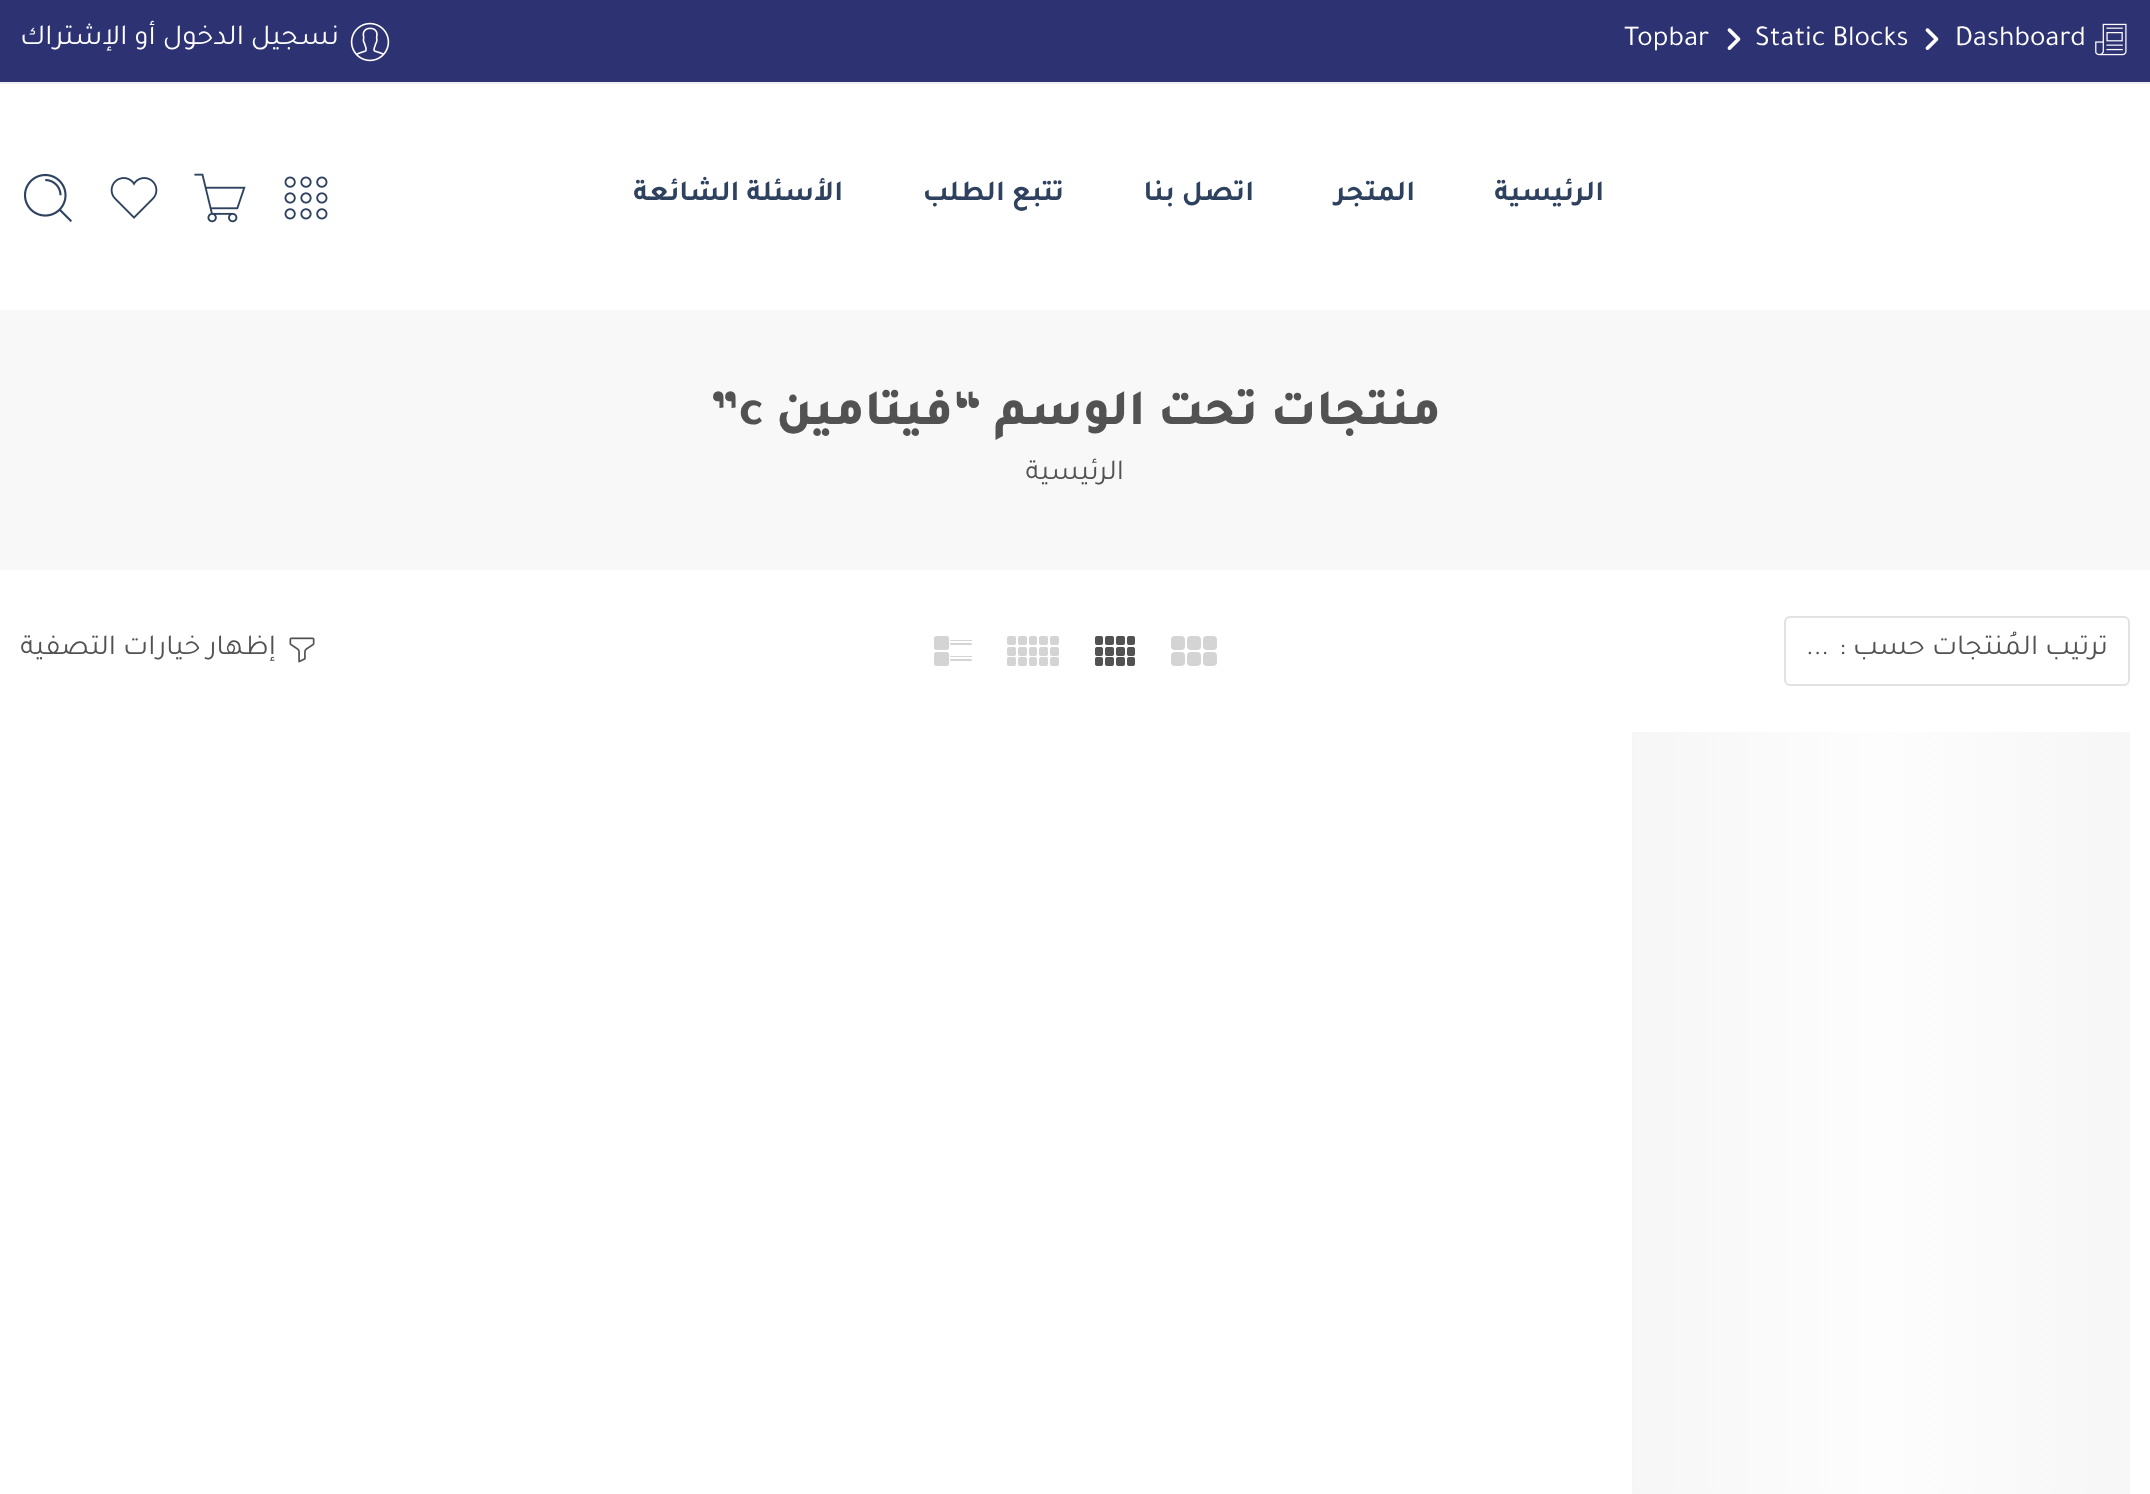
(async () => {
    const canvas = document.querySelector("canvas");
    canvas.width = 2150;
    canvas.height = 1494;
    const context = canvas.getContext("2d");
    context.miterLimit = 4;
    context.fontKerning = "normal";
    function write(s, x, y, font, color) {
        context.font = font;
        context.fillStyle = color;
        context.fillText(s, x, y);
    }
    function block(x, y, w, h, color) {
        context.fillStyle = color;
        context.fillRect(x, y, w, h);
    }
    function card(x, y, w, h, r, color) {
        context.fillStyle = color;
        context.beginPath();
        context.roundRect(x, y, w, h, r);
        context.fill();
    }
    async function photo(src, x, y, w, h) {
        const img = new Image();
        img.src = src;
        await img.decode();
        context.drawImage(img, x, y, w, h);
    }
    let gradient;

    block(0, 0, 2150, 1494, "rgb(255, 255, 255)");
    block(0, 0, 2150, 82, "rgb(45, 50, 115)");
    block(0, 82, 2150, 2, "rgb(239, 239, 239)");
    await photo("media/1.png", 2095, 23, 32, 33);
    write("Dashboard", 1955, 45, "29px Tajawal", "rgb(255, 255, 255)");
    await photo("media/2.png", 1925, 28, 14, 22);
    write("Static Blocks", 1755, 45, "29px Tajawal", "rgb(255, 255, 255)");
    await photo("media/2.png", 1727, 28, 14, 22);
    write("Topbar", 1624, 45, "29px Tajawal", "rgb(255, 255, 255)");
    await photo("media/3.png", 350, 22, 40, 40);
    context.direction = "rtl";
    write("نسجيل الدخول أو الإشتراك", 339, 44, "29px Tajawal", "rgb(255, 255, 255)");
    write("الرئيسية", 1604, 200, "bold 29px Tajawal", "rgb(46, 66, 95)");
    write("المتجر", 1415, 200, "bold 29px Tajawal", "rgb(46, 66, 95)");
    write("اتصل بنا", 1254, 200, "bold 29px Tajawal", "rgb(46, 66, 95)");
    write("تتبع الطلب", 1064, 200, "bold 29px Tajawal", "rgb(46, 66, 95)");
    write("الأسئلة الشائعة", 843, 200, "bold 29px Tajawal", "rgb(46, 66, 95)");
    await photo("media/4.png", 284, 176, 44, 44);
    await photo("media/5.png", 194, 173, 52, 50);
    await photo("media/6.png", 110, 177, 48, 42);
    await photo("media/7.png", 23, 173, 49, 49);
    block(0, 310, 2150, 260, "rgb(248, 248, 248)");
    write("منتجات تحت الوسم “فيتامين", 1441, 424, "800 50.75px Tajawal", "rgb(82, 82, 82)");
    context.direction = "ltr";
    write("”c", 710, 424, "800 50.75px Tajawal", "rgb(82, 82, 82)");
    context.direction = "rtl";
    write("الرئيسية", 1124, 479, "29px Tajawal", "rgb(82, 82, 82)");
    context.beginPath();
    context.roundRect(1785, 617, 344, 68, 5);
    context.strokeStyle = "rgb(226, 226, 226)";
    context.lineWidth = 2;
    context.stroke();
    write("ترتيب المُنتجات حسب :", 2108, 654, "29px Tajawal", "rgb(82, 82, 82)");
    context.direction = "ltr";
    write("...", 1806, 654, "29px Tajawal", "rgb(82, 82, 82)");
    card(1171, 636, 14, 14, 4, "rgb(212, 212, 212)");
    card(1171, 652, 14, 14, 4, "rgb(212, 212, 212)");
    card(1187, 636, 14, 14, 4, "rgb(212, 212, 212)");
    card(1203, 636, 14, 14, 4, "rgb(212, 212, 212)");
    card(1187, 652, 14, 14, 4, "rgb(212, 212, 212)");
    card(1203, 652, 14, 14, 4, "rgb(212, 212, 212)");
    await photo("media/8.png", 1095, 636, 40, 30);
    await photo("media/9.png", 1007, 636, 52, 30);
    card(950, 640, 22, 1, 0.5, "rgb(212, 212, 212)");
    card(950, 643, 22, 2, 1, "rgb(212, 212, 212)");
    card(934, 636, 15, 14, 2.5, "rgb(212, 212, 212)");
    card(950, 656, 22, 1, 0.5, "rgb(212, 212, 212)");
    card(950, 659, 22, 2, 1, "rgb(212, 212, 212)");
    card(934, 652, 15, 14, 2.5, "rgb(212, 212, 212)");
    await photo("media/10.png", 289, 637, 26, 26);
    context.direction = "rtl";
    write("إظهار خيارات التصفية", 276, 654, "29px Tajawal", "rgb(82, 82, 82)");
    gradient = context.createLinearGradient(1384, 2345, 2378, 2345);
    gradient.addColorStop(0.2, "rgb(245, 245, 245)");
    gradient.addColorStop(0.5, "rgb(253, 253, 253)");
    gradient.addColorStop(0.8, "rgb(245, 245, 245)");
    context.fillStyle = gradient;
    context.fillRect(1632, 732, 498, 762);
})();
